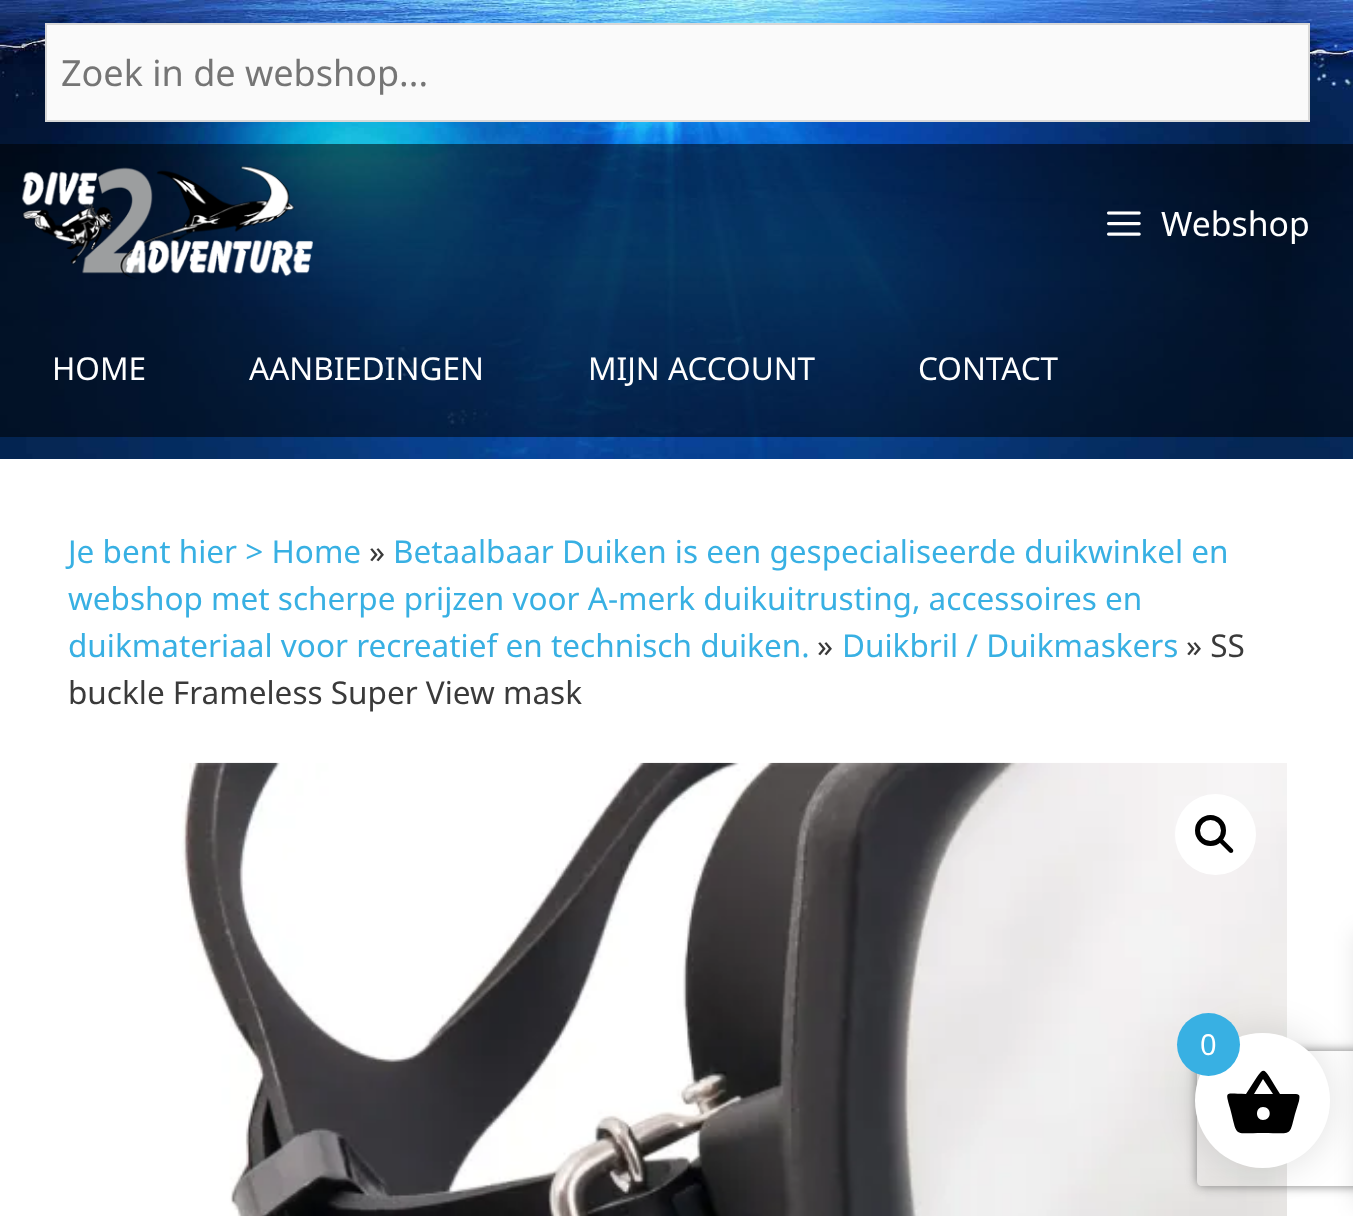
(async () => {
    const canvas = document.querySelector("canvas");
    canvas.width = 1353;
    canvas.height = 1216;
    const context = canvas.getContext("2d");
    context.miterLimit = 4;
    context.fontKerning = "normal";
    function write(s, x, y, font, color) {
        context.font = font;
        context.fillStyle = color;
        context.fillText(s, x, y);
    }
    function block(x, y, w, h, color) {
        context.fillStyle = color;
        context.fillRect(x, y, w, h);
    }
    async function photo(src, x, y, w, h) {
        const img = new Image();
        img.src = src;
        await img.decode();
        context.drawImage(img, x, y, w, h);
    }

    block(0, 0, 1353, 1216, "rgb(255, 255, 255)");
    await photo("media/1.png", 0, 0, 1353, 459);
    context.fillStyle = "rgb(250, 250, 250)";
    context.beginPath();
    context.rect(46, 24, 1263, 97);
    context.fill();
    context.strokeStyle = "rgb(216, 216, 216)";
    context.lineWidth = 2;
    context.stroke();
    write("Zoek in de webshop...", 61, 86, "36px Noto Sans", "rgb(117, 117, 117)");
    block(0, 144, 1353, 158, "rgba(0, 0, 0, 0.53)");
    await photo("media/2.png", 22, 166, 291, 113);
    await photo("media/3.png", 1107, 211, 34, 25);
    write("Webshop", 1161, 236, "33.75px Noto Sans", "rgb(255, 255, 255)");
    block(0, 302, 1353, 135, "rgba(0, 0, 0, 0.53)");
    write("HOME", 52, 380, "31.5px Noto Sans", "rgb(255, 255, 255)");
    write("AANBIEDINGEN", 249, 380, "31.5px Noto Sans", "rgb(255, 255, 255)");
    write("MIJN ACCOUNT", 588, 380, "31.5px Noto Sans", "rgb(255, 255, 255)");
    write("CONTACT", 918, 380, "31.5px Noto Sans", "rgb(255, 255, 255)");
    write("Je bent hier > Home", 68, 563, "31.5px Noto Sans", "rgb(56, 176, 227)");
    write("»", 369, 563, "31.5px Noto Sans", "rgb(58, 58, 58)");
    write("Betaalbaar Duiken is een gespecialiseerde duikwinkel en", 393, 563, "31.5px Noto Sans", "rgb(56, 176, 227)");
    write("webshop met scherpe prijzen voor A-merk duikuitrusting, accessoires en", 68, 610, "31.5px Noto Sans", "rgb(56, 176, 227)");
    write("duikmateriaal voor recreatief en technisch duiken.", 68, 657, "31.5px Noto Sans", "rgb(56, 176, 227)");
    write("»", 817, 657, "31.5px Noto Sans", "rgb(58, 58, 58)");
    write("Duikbril / Duikmaskers", 842, 657, "31.5px Noto Sans", "rgb(56, 176, 227)");
    write("» SS", 1186, 657, "31.5px Noto Sans", "rgb(58, 58, 58)");
    write("buckle Frameless Super View mask", 68, 704, "31.5px Noto Sans", "rgb(58, 58, 58)");
    await photo("media/4.png", 181, 762, 1106, 454);
    context.fillStyle = "rgb(255, 255, 255)";
    context.beginPath();
    context.arc(1215.5, 834.5, 40.5, 0, Math.PI * 2);
    context.fill();
    context.beginPath();
    context.arc(1210.5, 830.5, 13, 0, Math.PI * 2);
    context.strokeStyle = "rgb(0, 0, 0)";
    context.lineWidth = 5;
    context.stroke();
    context.fillStyle = "rgb(0, 0, 0)";
    context.beginPath();
    context.moveTo(1220, 839.5);
    context.bezierCurveTo(1221, 839, 1222, 839, 1223, 839.5);
    context.lineTo(1232.5, 849);
    context.bezierCurveTo(1233.5, 850, 1233.5, 851.5, 1232.5, 852.5);
    context.bezierCurveTo(1231.5, 853, 1230.5, 853, 1229.5, 852.5);
    context.lineTo(1220, 843);
    context.bezierCurveTo(1219, 842, 1219, 840.5, 1220, 839.5);
    context.closePath();
    context.fill();
    context.save();
    context.beginPath();
    context.moveTo(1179, 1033);
    context.lineTo(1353, 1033);
    context.lineTo(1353, 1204);
    context.lineTo(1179, 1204);
    context.closePath();
    context.moveTo(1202, 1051);
    context.lineTo(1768, 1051);
    context.bezierCurveTo(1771, 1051, 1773, 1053, 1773, 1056);
    context.lineTo(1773, 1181);
    context.bezierCurveTo(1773, 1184, 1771, 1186, 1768, 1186);
    context.lineTo(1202, 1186);
    context.bezierCurveTo(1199, 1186, 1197, 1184, 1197, 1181);
    context.lineTo(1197, 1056);
    context.bezierCurveTo(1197, 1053, 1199, 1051, 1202, 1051);
    context.closePath();
    context.clip("evenodd");
    context.fillStyle = "rgb(128, 128, 128)";
    context.filter = "blur(5.5px)";
    context.beginPath();
    context.roundRect(1197, 1051, 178, 135, 5);
    context.fill();
    context.filter = "none";
    context.restore();
    context.fillStyle = "rgba(0, 0, 0, 0.1)";
    context.filter = "blur(17px)";
    context.beginPath();
    context.roundRect(1190, 1028, 144, 144, 72);
    context.fill();
    context.filter = "none";
    context.filter = "blur(11px)";
    context.beginPath();
    context.rect(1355, 932, 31, 274);
    context.fill();
    context.filter = "none";
    context.fillStyle = "rgb(255, 255, 255)";
    context.beginPath();
    context.arc(1262.5, 1100.5, 67.5, 0, Math.PI * 2);
    context.fill();
    context.fillStyle = "rgb(0, 0, 0)";
    context.beginPath();
    context.moveTo(1263, 1120);
    context.bezierCurveTo(1272, 1120, 1272, 1107, 1263, 1107);
    context.bezierCurveTo(1255, 1107, 1255, 1120, 1263, 1120);
    context.closePath();
    context.moveTo(1254, 1094);
    context.lineTo(1273, 1094);
    context.lineTo(1263, 1079);
    context.closePath();
    context.moveTo(1280, 1094);
    context.lineTo(1294, 1094);
    context.bezierCurveTo(1300, 1094, 1300, 1095, 1299, 1101);
    context.lineTo(1295, 1114);
    context.bezierCurveTo(1289, 1137, 1293, 1133, 1263, 1133);
    context.bezierCurveTo(1232, 1133, 1238, 1138, 1230, 1108);
    context.bezierCurveTo(1225, 1090, 1225, 1094, 1246, 1094);
    context.bezierCurveTo(1267, 1063, 1260, 1063, 1280, 1094);
    context.closePath();
    context.fill();
    context.fillStyle = "rgb(56, 176, 227)";
    context.beginPath();
    context.arc(1208.5, 1044.5, 31.5, 0, Math.PI * 2);
    context.fill();
    write("0", 1200, 1055, "29px Noto Sans", "rgb(255, 255, 255)");
})();
